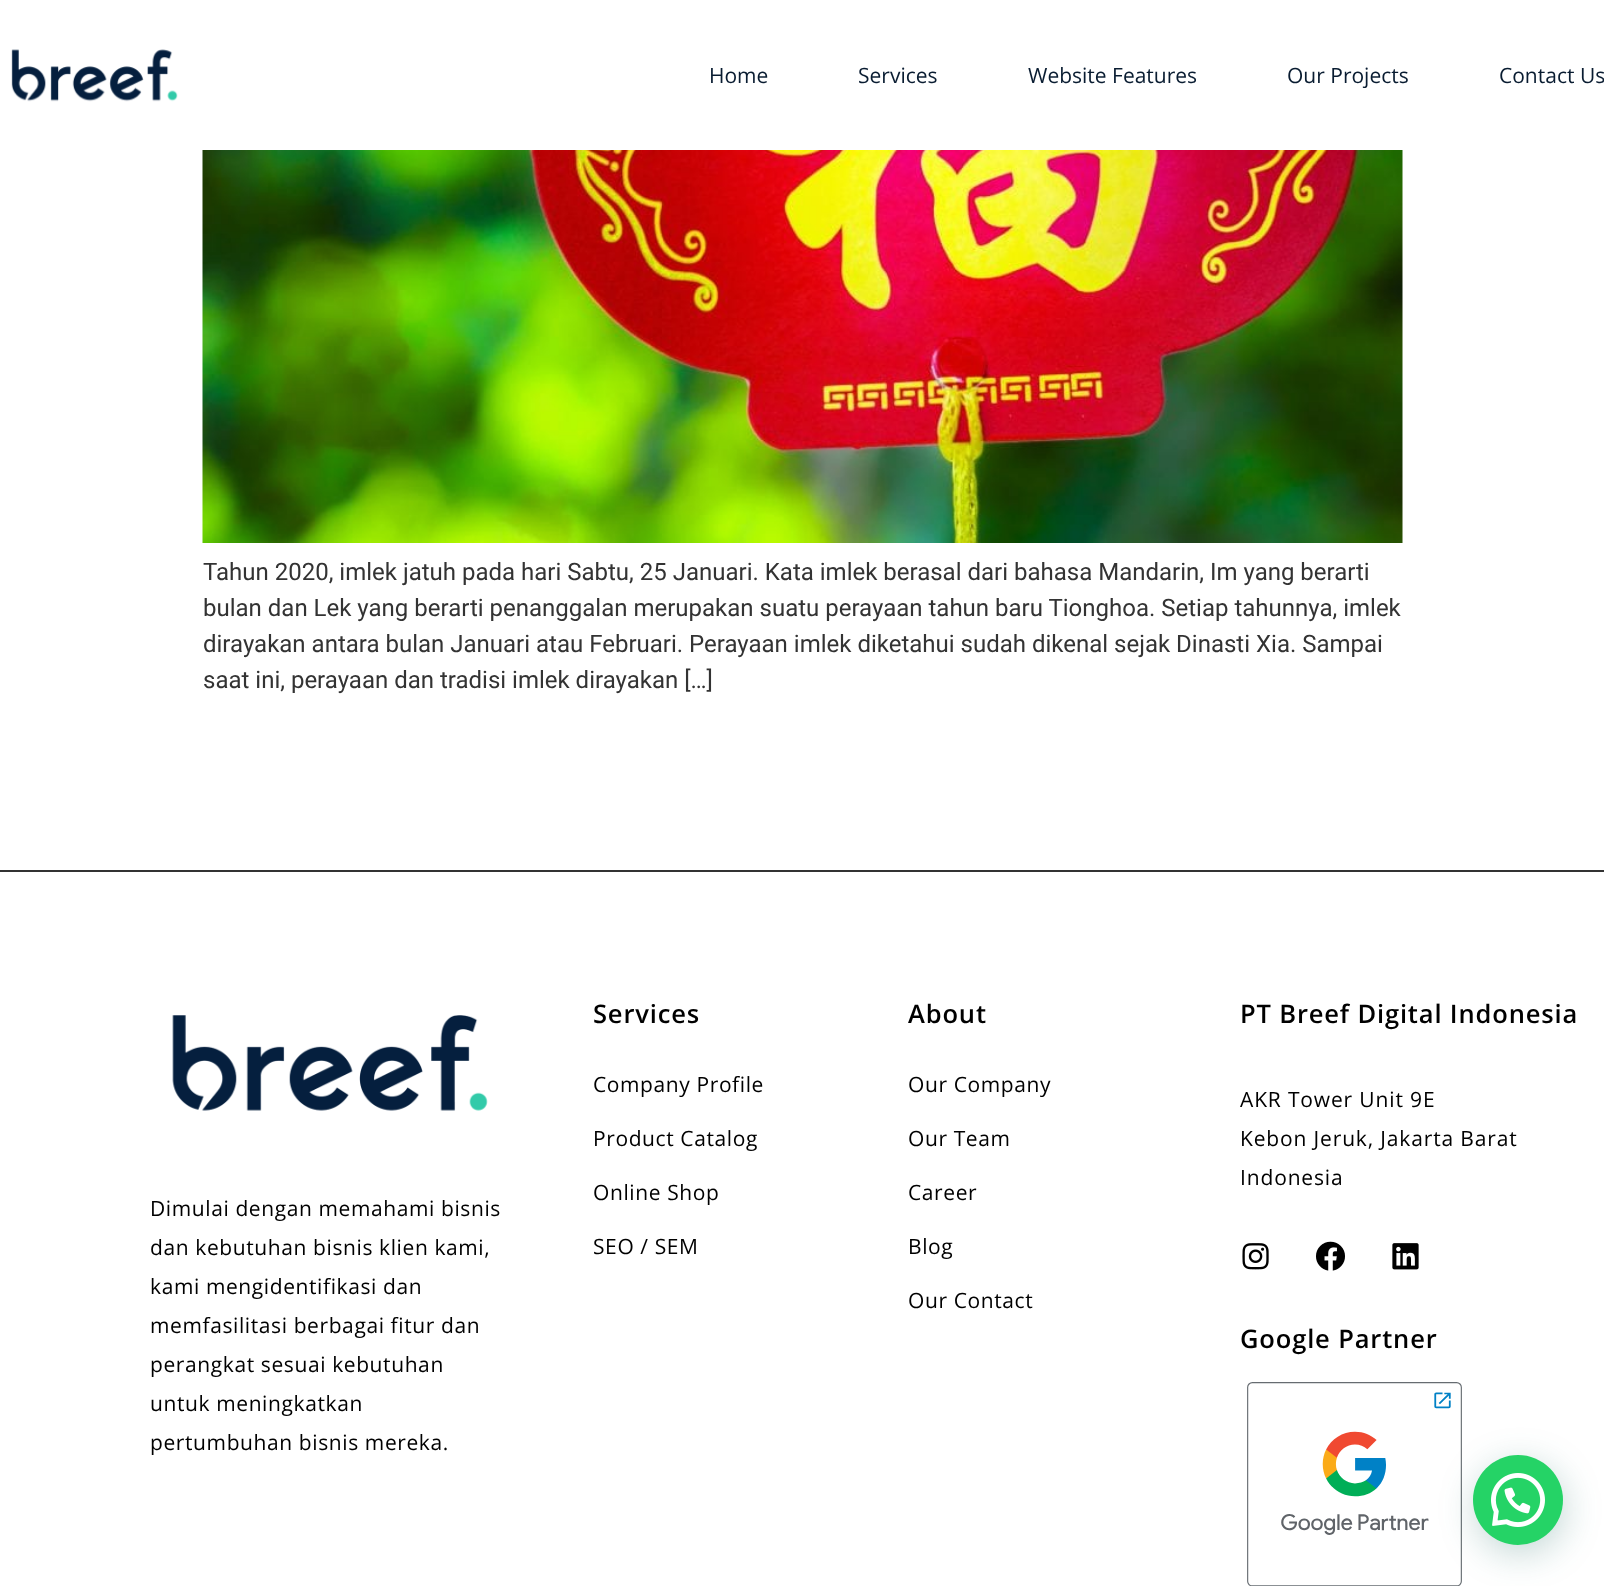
(async () => {
    const canvas = document.querySelector("canvas");
    canvas.width = 1604;
    canvas.height = 1586;
    const context = canvas.getContext("2d");
    context.miterLimit = 4;
    context.fontKerning = "normal";
    function write(s, x, y, font, color) {
        context.font = font;
        context.fillStyle = color;
        context.fillText(s, x, y);
    }
    function block(x, y, w, h, color) {
        context.fillStyle = color;
        context.fillRect(x, y, w, h);
    }
    async function photo(src, x, y, w, h) {
        const img = new Image();
        img.src = src;
        await img.decode();
        context.drawImage(img, x, y, w, h);
    }

    block(0, 0, 1604, 1586, "rgb(255, 255, 255)");
    await photo("media/1.png", 11, 49, 167, 53);
    write("Home", 709, 83, "21px Open Sans", "rgb(9, 28, 49)");
    write("Services", 858, 83, "21px Open Sans", "rgb(9, 28, 49)");
    write("Website Features", 1028, 83, "21px Open Sans", "rgb(9, 28, 49)");
    write("Our Projects", 1287, 83, "21px Open Sans", "rgb(9, 28, 49)");
    write("Contact Us", 1499, 83, "21px Open Sans", "rgb(9, 28, 49)");
    await photo("media/2.png", 202, 150, 1201, 393);
    write("Tahun 2020, imlek jatuh pada hari Sabtu, 25 Januari. Kata imlek berasal dari bahasa Mandarin, Im yang berarti", 203, 580, "24px Roboto", "rgb(51, 51, 51)");
    write("bulan dan Lek yang berarti penanggalan merupakan suatu perayaan tahun baru Tionghoa. Setiap tahunnya, imlek", 203, 616, "24px Roboto", "rgb(51, 51, 51)");
    write("dirayakan antara bulan Januari atau Februari. Perayaan imlek diketahui sudah dikenal sejak Dinasti Xia. Sampai", 203, 652, "24px Roboto", "rgb(51, 51, 51)");
    write("saat ini, perayaan dan tradisi imlek dirayakan […]", 203, 688, "24px Roboto", "rgb(51, 51, 51)");
    block(0, 870, 1604, 2, "rgb(51, 51, 51)");
    await photo("media/3.png", 172, 1015, 316, 96);
    context.letterSpacing = "0.6px";
    write("Dimulai dengan memahami bisnis", 150, 1216, "21px Open Sans", "rgb(0, 0, 0)");
    write("dan kebutuhan bisnis klien kami,", 150, 1255, "21px Open Sans", "rgb(0, 0, 0)");
    write("kami mengidentifikasi dan", 150, 1294, "21px Open Sans", "rgb(0, 0, 0)");
    write("memfasilitasi berbagai fitur dan", 150, 1333, "21px Open Sans", "rgb(0, 0, 0)");
    write("perangkat sesuai kebutuhan", 150, 1372, "21px Open Sans", "rgb(0, 0, 0)");
    write("untuk meningkatkan", 150, 1411, "21px Open Sans", "rgb(0, 0, 0)");
    write("pertumbuhan bisnis mereka.", 150, 1450, "21px Open Sans", "rgb(0, 0, 0)");
    context.letterSpacing = "0.85px";
    write("Services", 593, 1023, "600 25.5px Open Sans", "rgb(0, 0, 0)");
    context.letterSpacing = "0.6px";
    write("Company Profile", 593, 1092, "21px Open Sans", "rgb(0, 0, 0)");
    write("Product Catalog", 593, 1146, "21px Open Sans", "rgb(0, 0, 0)");
    write("Online Shop", 593, 1200, "21px Open Sans", "rgb(0, 0, 0)");
    write("SEO / SEM", 593, 1254, "21px Open Sans", "rgb(0, 0, 0)");
    context.letterSpacing = "0.85px";
    write("About", 908, 1023, "600 25.5px Open Sans", "rgb(0, 0, 0)");
    context.letterSpacing = "0.6px";
    write("Our Company", 908, 1092, "21px Open Sans", "rgb(0, 0, 0)");
    write("Our Team", 908, 1146, "21px Open Sans", "rgb(0, 0, 0)");
    write("Career", 908, 1200, "21px Open Sans", "rgb(0, 0, 0)");
    write("Blog", 908, 1254, "21px Open Sans", "rgb(0, 0, 0)");
    write("Our Contact", 908, 1308, "21px Open Sans", "rgb(0, 0, 0)");
    context.letterSpacing = "0.85px";
    write("PT Breef Digital Indonesia", 1240, 1023, "600 25.5px Open Sans", "rgb(0, 0, 0)");
    write("AKR Tower Unit 9E", 1240, 1107, "21px Open Sans", "rgb(0, 0, 0)");
    write("Kebon Jeruk, Jakarta Barat", 1240, 1146, "21px Open Sans", "rgb(0, 0, 0)");
    write("Indonesia", 1240, 1185, "21px Open Sans", "rgb(0, 0, 0)");
    await photo("media/4.png", 1242, 1243, 27, 27);
    await photo("media/5.png", 1316, 1241, 29, 30);
    await photo("media/6.png", 1392, 1243, 27, 27);
    write("Google Partner", 1240, 1348, "600 25.5px Open Sans", "rgb(0, 0, 0)");
    await photo("media/7.png", 1247, 1382, 215, 204);
    context.fillStyle = "rgba(7, 94, 84, 0.24)";
    context.filter = "blur(18px)";
    context.beginPath();
    context.roundRect(1475, 1464, 90, 90, 45);
    context.fill();
    context.filter = "none";
    context.fillStyle = "rgb(37, 211, 102)";
    context.beginPath();
    context.arc(1518, 1500, 45, 0, Math.PI * 2);
    context.fill();
    await photo("media/8.png", 1491, 1473, 54, 54);
})();
